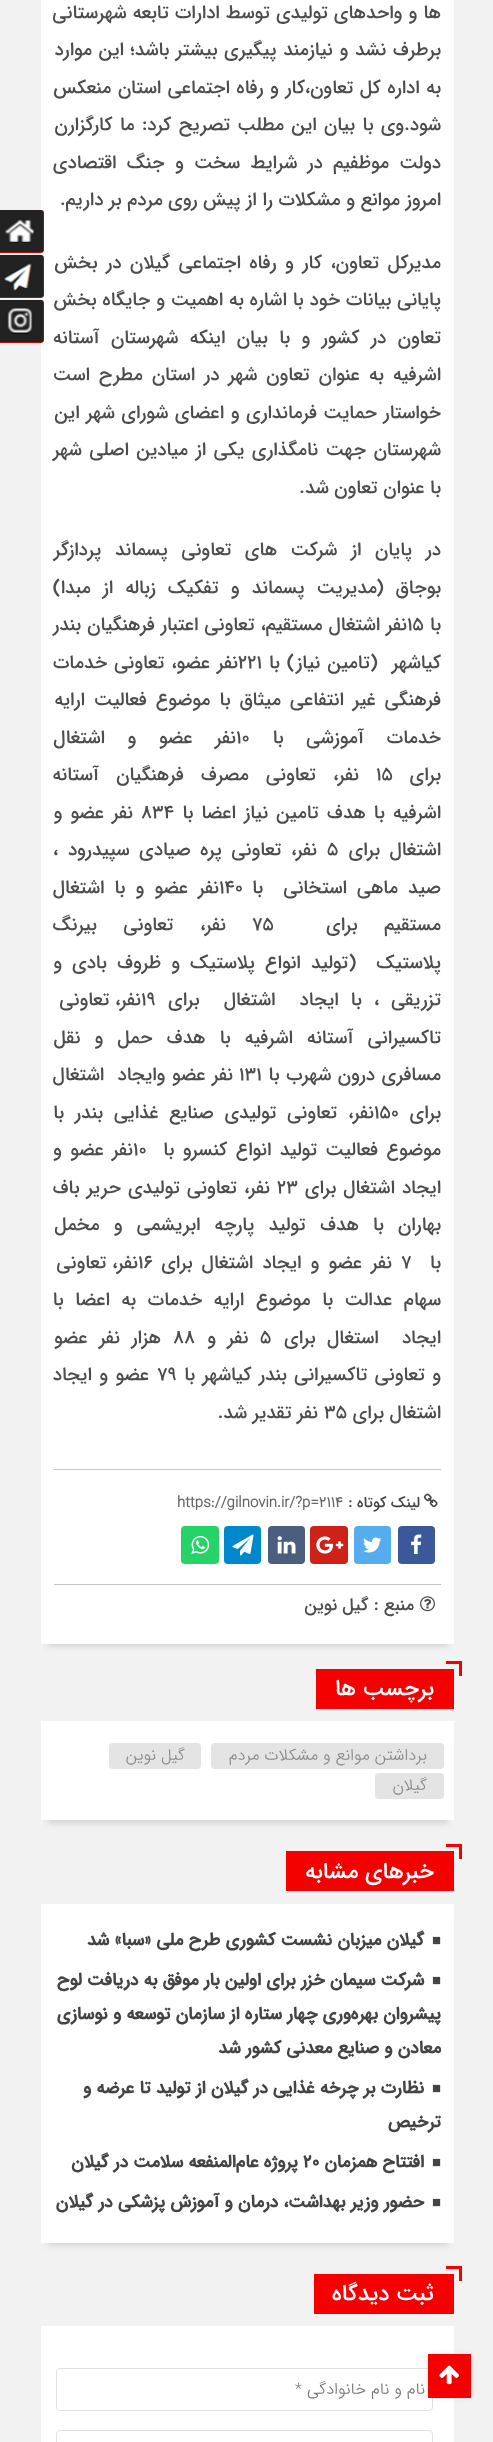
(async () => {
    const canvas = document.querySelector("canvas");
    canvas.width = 493;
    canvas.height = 2442;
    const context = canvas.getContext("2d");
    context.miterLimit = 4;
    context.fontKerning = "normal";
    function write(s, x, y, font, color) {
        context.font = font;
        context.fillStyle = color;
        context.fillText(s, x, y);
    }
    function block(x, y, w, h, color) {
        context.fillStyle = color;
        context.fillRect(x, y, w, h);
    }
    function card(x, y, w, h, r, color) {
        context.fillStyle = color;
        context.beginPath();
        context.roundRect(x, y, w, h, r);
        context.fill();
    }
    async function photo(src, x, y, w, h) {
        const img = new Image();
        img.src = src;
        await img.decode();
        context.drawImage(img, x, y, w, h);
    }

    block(0, 0, 493, 2442, "rgb(242, 242, 242)");
    block(41, 2326, 413, 116, "rgb(255, 255, 255)");
    context.beginPath();
    context.roundRect(56.5, 2368.5, 376, 42, 3.5);
    context.strokeStyle = "rgb(226, 226, 226)";
    context.stroke();
    context.fillStyle = "rgba(0, 0, 0, 0.3)";
    context.filter = "blur(4.5px)";
    context.beginPath();
    context.rect(431, 2358, 37, 36);
    context.fill();
    context.filter = "none";
    block(428, 2354, 43, 44, "rgb(244, 0, 0)");
    await photo("media/1.png", 439, 2365, 20, 20);
    context.fillStyle = "rgb(207, 207, 207)";
    context.filter = "blur(3px)";
    context.beginPath();
    context.rect(48, -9, 400, 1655);
    context.fill();
    context.filter = "none";
    block(41, 0, 413, 1644, "rgb(255, 255, 255)");
    context.wordSpacing = "0.5px";
    context.direction = "rtl";
    write("ها و واحدهای تولیدی توسط ادارات تابعه شهرستانی", 441, 18, "500 18.75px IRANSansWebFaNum", "rgb(77, 77, 77)");
    context.wordSpacing = "1px";
    write("برطرف نشد و نیازمند پیگیری بیشتر باشد؛ این موارد", 441, 55, "500 18.75px IRANSansWebFaNum", "rgb(77, 77, 77)");
    write("به اداره کل تعاون،کار و رفاه اجتماعی استان منعکس", 441, 93, "500 18.75px IRANSansWebFaNum", "rgb(77, 77, 77)");
    context.wordSpacing = "1.75px";
    write("شود.وی با بیان این مطلب تصریح کرد: ما کارگزارن", 441, 130, "500 18.75px IRANSansWebFaNum", "rgb(77, 77, 77)");
    context.wordSpacing = "4.75px";
    write("دولت موظفیم در شرایط سخت و جنگ اقتصادی", 441, 168, "500 18.75px IRANSansWebFaNum", "rgb(77, 77, 77)");
    context.wordSpacing = "0px";
    write("امروز موانع و مشکلات را از پیش روی مردم بر داریم.", 441, 205, "500 18.75px IRANSansWebFaNum", "rgb(77, 77, 77)");
    context.wordSpacing = "3px";
    write("مدیرکل تعاون، کار و رفاه اجتماعی گیلان در بخش", 441, 268, "500 18.75px IRANSansWebFaNum", "rgb(77, 77, 77)");
    context.wordSpacing = "0.25px";
    write("پایانی بیانات خود با اشاره به اهمیت و جایگاه بخش", 441, 305, "500 18.75px IRANSansWebFaNum", "rgb(77, 77, 77)");
    context.wordSpacing = "5.75px";
    write("تعاون در کشور و با بیان اینکه شهرستان آستانه", 441, 343, "500 18.75px IRANSansWebFaNum", "rgb(77, 77, 77)");
    context.wordSpacing = "3.5px";
    write("اشرفیه به عنوان تعاون شهر در استان مطرح است", 441, 380, "500 18.75px IRANSansWebFaNum", "rgb(77, 77, 77)");
    context.wordSpacing = "1px";
    write("خواستار حمایت فرمانداری و اعضای شورای شهر این", 441, 418, "500 18.75px IRANSansWebFaNum", "rgb(77, 77, 77)");
    context.wordSpacing = "2px";
    write("شهرستان جهت نامگذاری یکی از میادین اصلی شهر", 441, 455, "500 18.75px IRANSansWebFaNum", "rgb(77, 77, 77)");
    context.wordSpacing = "0px";
    write("با عنوان تعاون شد.", 441, 493, "500 18.75px IRANSansWebFaNum", "rgb(77, 77, 77)");
    context.wordSpacing = "8px";
    write("در پایان از شرکت های تعاونی پسماند پردازگر", 441, 555, "500 18.75px IRANSansWebFaNum", "rgb(77, 77, 77)");
    context.wordSpacing = "6.5px";
    write("بوجاق (مدیریت پسماند و تفکیک زباله از مبدا)", 441, 593, "500 18.75px IRANSansWebFaNum", "rgb(77, 77, 77)");
    context.wordSpacing = "0px";
    write("با", 441, 630, "500 18.75px IRANSansWebFaNum", "rgb(77, 77, 77)");
    context.direction = "ltr";
    write("۱۵", 407, 630, "500 18.75px IRANSansWebFaNum", "rgb(77, 77, 77)");
    context.wordSpacing = "0.5px";
    context.direction = "rtl";
    write("نفر اشتغال مستقیم، تعاونی اعتبار فرهنگیان بندر", 407, 630, "500 18.75px IRANSansWebFaNum", "rgb(77, 77, 77)");
    context.wordSpacing = "1.5px";
    write("کیاشهر  (تامین نیاز) با", 441, 668, "500 18.75px IRANSansWebFaNum", "rgb(77, 77, 77)");
    context.wordSpacing = "0px";
    context.direction = "ltr";
    write("۲۲۱", 238, 668, "500 18.75px IRANSansWebFaNum", "rgb(77, 77, 77)");
    context.wordSpacing = "1.5px";
    context.direction = "rtl";
    write("نفر عضو، تعاونی خدمات", 238, 668, "500 18.75px IRANSansWebFaNum", "rgb(77, 77, 77)");
    context.wordSpacing = "3.5px";
    write("فرهنگی غیر انتفاعی میثاق با موضوع فعالیت ارایه", 441, 705, "500 18.75px IRANSansWebFaNum", "rgb(77, 77, 77)");
    context.wordSpacing = "17px";
    write("خدمات آموزشی با", 441, 743, "500 18.75px IRANSansWebFaNum", "rgb(77, 77, 77)");
    context.wordSpacing = "0px";
    context.direction = "ltr";
    write("۱۰", 236, 743, "500 18.75px IRANSansWebFaNum", "rgb(77, 77, 77)");
    context.wordSpacing = "17px";
    context.direction = "rtl";
    write("نفر عضو و اشتغال", 236, 743, "500 18.75px IRANSansWebFaNum", "rgb(77, 77, 77)");
    context.wordSpacing = "0px";
    write("برای", 441, 780, "500 18.75px IRANSansWebFaNum", "rgb(77, 77, 77)");
    context.direction = "ltr";
    write("۱۵", 376, 780, "500 18.75px IRANSansWebFaNum", "rgb(77, 77, 77)");
    context.wordSpacing = "11.5px";
    context.direction = "rtl";
    write("نفر، تعاونی مصرف فرهنگیان آستانه", 359, 780, "500 18.75px IRANSansWebFaNum", "rgb(77, 77, 77)");
    context.wordSpacing = "2.5px";
    write("اشرفیه با هدف تامین نیاز اعضا با", 441, 818, "500 18.75px IRANSansWebFaNum", "rgb(77, 77, 77)");
    context.wordSpacing = "0px";
    context.direction = "ltr";
    write("۸۳۴", 141, 818, "500 18.75px IRANSansWebFaNum", "rgb(77, 77, 77)");
    context.wordSpacing = "2.5px";
    context.direction = "rtl";
    write("نفر عضو و", 133, 818, "500 18.75px IRANSansWebFaNum", "rgb(77, 77, 77)");
    context.wordSpacing = "4px";
    write("اشتغال برای", 441, 855, "500 18.75px IRANSansWebFaNum", "rgb(77, 77, 77)");
    context.wordSpacing = "0px";
    context.direction = "ltr";
    write("۵", 327, 855, "500 18.75px IRANSansWebFaNum", "rgb(77, 77, 77)");
    context.wordSpacing = "4px";
    context.direction = "rtl";
    write("نفر، تعاونی پره صیادی سپیدرود ،", 317, 855, "500 18.75px IRANSansWebFaNum", "rgb(77, 77, 77)");
    context.wordSpacing = "4.5px";
    write("صید ماهی استخانی  با", 441, 893, "500 18.75px IRANSansWebFaNum", "rgb(77, 77, 77)");
    context.wordSpacing = "0px";
    context.direction = "ltr";
    write("۱۴۰", 219, 893, "500 18.75px IRANSansWebFaNum", "rgb(77, 77, 77)");
    context.wordSpacing = "4.5px";
    context.direction = "rtl";
    write("نفر عضو و با اشتغال", 219, 893, "500 18.75px IRANSansWebFaNum", "rgb(77, 77, 77)");
    context.wordSpacing = "21px";
    write("مستقیم برای", 441, 930, "500 18.75px IRANSansWebFaNum", "rgb(77, 77, 77)");
    context.wordSpacing = "0px";
    context.direction = "ltr";
    write("۷۵", 252, 930, "500 18.75px IRANSansWebFaNum", "rgb(77, 77, 77)");
    context.wordSpacing = "21px";
    context.direction = "rtl";
    write("نفر، تعاونی بیرنگ", 226, 930, "500 18.75px IRANSansWebFaNum", "rgb(77, 77, 77)");
    context.wordSpacing = "4.5px";
    write("پلاستیک  (تولید انواع پلاستیک و ظروف بادی و", 441, 968, "500 18.75px IRANSansWebFaNum", "rgb(77, 77, 77)");
    context.wordSpacing = "6.5px";
    write("تزریقی ، با ایجاد  اشتغال  برای", 441, 1005, "500 18.75px IRANSansWebFaNum", "rgb(77, 77, 77)");
    context.wordSpacing = "0px";
    context.direction = "ltr";
    write("۱۹", 141, 1005, "500 18.75px IRANSansWebFaNum", "rgb(77, 77, 77)");
    context.direction = "rtl";
    write("نفر، تعاونی", 141, 1005, "500 18.75px IRANSansWebFaNum", "rgb(77, 77, 77)");
    context.wordSpacing = "8.5px";
    write("تاکسیرانی آستانه اشرفیه با هدف حمل و نقل", 441, 1043, "500 18.75px IRANSansWebFaNum", "rgb(77, 77, 77)");
    context.wordSpacing = "1px";
    write("مسافری درون شهرب با", 441, 1080, "500 18.75px IRANSansWebFaNum", "rgb(77, 77, 77)");
    context.wordSpacing = "0px";
    context.direction = "ltr";
    write("۱۳۱", 239, 1080, "500 18.75px IRANSansWebFaNum", "rgb(77, 77, 77)");
    context.wordSpacing = "1px";
    context.direction = "rtl";
    write("نفر عضو وایجاد  اشتغال", 233, 1080, "500 18.75px IRANSansWebFaNum", "rgb(77, 77, 77)");
    context.wordSpacing = "0px";
    write("برای", 441, 1118, "500 18.75px IRANSansWebFaNum", "rgb(77, 77, 77)");
    context.direction = "ltr";
    write("۱۵۰", 374, 1118, "500 18.75px IRANSansWebFaNum", "rgb(77, 77, 77)");
    context.wordSpacing = "5.25px";
    context.direction = "rtl";
    write("نفر، تعاونی تولیدی صنایع غذایی بندر با", 374, 1118, "500 18.75px IRANSansWebFaNum", "rgb(77, 77, 77)");
    context.wordSpacing = "2.75px";
    write("موضوع فعالیت تولید انواع کنسرو با", 441, 1155, "500 18.75px IRANSansWebFaNum", "rgb(77, 77, 77)");
    context.wordSpacing = "0px";
    context.direction = "ltr";
    write("۱۰", 133, 1155, "500 18.75px IRANSansWebFaNum", "rgb(77, 77, 77)");
    context.wordSpacing = "2.75px";
    context.direction = "rtl";
    write("نفر عضو و", 133, 1155, "500 18.75px IRANSansWebFaNum", "rgb(77, 77, 77)");
    context.wordSpacing = "1.5px";
    write("ایجاد اشتغال برای", 441, 1193, "500 18.75px IRANSansWebFaNum", "rgb(77, 77, 77)");
    context.wordSpacing = "0px";
    context.direction = "ltr";
    write("۲۳", 277, 1193, "500 18.75px IRANSansWebFaNum", "rgb(77, 77, 77)");
    context.wordSpacing = "1.5px";
    context.direction = "rtl";
    write("نفر، تعاونی تولیدی حریر باف", 270, 1193, "500 18.75px IRANSansWebFaNum", "rgb(77, 77, 77)");
    context.wordSpacing = "8.5px";
    write("بهاران با هدف تولید پارچه ابریشمی و مخمل", 441, 1230, "500 18.75px IRANSansWebFaNum", "rgb(77, 77, 77)");
    context.wordSpacing = "0px";
    write("با", 441, 1268, "500 18.75px IRANSansWebFaNum", "rgb(77, 77, 77)");
    context.direction = "ltr";
    write("۷", 401, 1268, "500 18.75px IRANSansWebFaNum", "rgb(77, 77, 77)");
    context.wordSpacing = "3.5px";
    context.direction = "rtl";
    write("نفر عضو و ایجاد اشتغال برای", 392, 1268, "500 18.75px IRANSansWebFaNum", "rgb(77, 77, 77)");
    context.wordSpacing = "0px";
    context.direction = "ltr";
    write("۱۶", 138, 1268, "500 18.75px IRANSansWebFaNum", "rgb(77, 77, 77)");
    context.direction = "rtl";
    write("نفر، تعاونی", 138, 1268, "500 18.75px IRANSansWebFaNum", "rgb(77, 77, 77)");
    context.wordSpacing = "6px";
    write("سهام عدالت با موضوع ارایه خدمات به اعضا با", 441, 1305, "500 18.75px IRANSansWebFaNum", "rgb(77, 77, 77)");
    write("ایجاد  استغال برای", 441, 1343, "500 18.75px IRANSansWebFaNum", "rgb(77, 77, 77)");
    context.wordSpacing = "0px";
    context.direction = "ltr";
    write("۵", 260, 1343, "500 18.75px IRANSansWebFaNum", "rgb(77, 77, 77)");
    context.wordSpacing = "6px";
    context.direction = "rtl";
    write("‌ نفر و", 260, 1343, "500 18.75px IRANSansWebFaNum", "rgb(77, 77, 77)");
    context.wordSpacing = "0px";
    context.direction = "ltr";
    write("۸۸", 173, 1343, "500 18.75px IRANSansWebFaNum", "rgb(77, 77, 77)");
    context.wordSpacing = "6px";
    context.direction = "rtl";
    write("هزار نفر عضو", 161, 1343, "500 18.75px IRANSansWebFaNum", "rgb(77, 77, 77)");
    context.wordSpacing = "1.75px";
    write("و تعاونی تاکسیرانی بندر کیاشهر با", 441, 1380, "500 18.75px IRANSansWebFaNum", "rgb(77, 77, 77)");
    context.wordSpacing = "0px";
    context.direction = "ltr";
    write("۷۹", 157, 1380, "500 18.75px IRANSansWebFaNum", "rgb(77, 77, 77)");
    context.wordSpacing = "1.75px";
    context.direction = "rtl";
    write("عضو و ایجاد", 149, 1380, "500 18.75px IRANSansWebFaNum", "rgb(77, 77, 77)");
    context.wordSpacing = "0px";
    write("اشتغال برای", 441, 1418, "500 18.75px IRANSansWebFaNum", "rgb(77, 77, 77)");
    context.direction = "ltr";
    write("۳۵", 324, 1418, "500 18.75px IRANSansWebFaNum", "rgb(77, 77, 77)");
    context.direction = "rtl";
    write("نفر تقدیر شد.", 318, 1418, "500 18.75px IRANSansWebFaNum", "rgb(77, 77, 77)");
    block(54, 1469, 387, 1, "rgb(196, 196, 196)");
    block(54, 1584, 387, 1, "rgb(196, 196, 196)");
    await photo("media/2.png", 423, 1493, 15, 15);
    write("لینک کوتاه :", 420, 1507, "500 15px IRANSansWebFaNum", "rgb(68, 68, 68)");
    context.direction = "ltr";
    write("https://gilnovin.ir/?p=2114", 177, 1507, "bold 15px IRANSansWebFaNum", "rgb(102, 102, 102)");
    card(398, 1526, 37, 38, 4, "rgb(59, 89, 153)");
    await photo("media/3.png", 411, 1534, 11, 20);
    card(354, 1526, 37, 38, 4, "rgb(85, 172, 238)");
    await photo("media/4.png", 363, 1537, 19, 16);
    card(310, 1526, 38, 38, 4, "rgb(206, 33, 24)");
    await photo("media/5.png", 316, 1536, 28, 18);
    card(268, 1526, 37, 38, 4, "rgb(76, 94, 125)");
    await photo("media/6.png", 277, 1536, 19, 18);
    card(224, 1526, 37, 38, 4, "rgb(0, 136, 204)");
    await photo("media/7.png", 232, 1534, 22, 22);
    card(181, 1526, 38, 38, 4, "rgb(37, 211, 102)");
    await photo("media/8.png", 191, 1535, 19, 19);
    await photo("media/9.png", 420, 1596, 15, 16);
    context.direction = "rtl";
    write("منبع : گیل نوین", 414, 1610, "500 17.5px IRANSansWebFaNum", "rgb(77, 77, 77)");
    block(316, 1669, 138, 40, "rgb(244, 0, 0)");
    block(446, 1661, 15, 3, "rgb(244, 0, 0)");
    block(459, 1661, 3, 15, "rgb(244, 0, 0)");
    write("برچسب ها", 434, 1695, "500 22.5px IRANSansWebFaNum", "rgb(255, 255, 255)");
    context.fillStyle = "rgb(207, 207, 207)";
    context.filter = "blur(3px)";
    context.beginPath();
    context.rect(48, 1736, 400, 87);
    context.fill();
    context.filter = "none";
    block(41, 1721, 413, 99, "rgb(255, 255, 255)");
    card(211, 1743, 233, 26, 4, "rgb(228, 228, 228)");
    write("برداشتن موانع و مشکلات مردم", 427, 1760, "300 16.25px IRANSansWebFaNum", "rgb(136, 136, 136)");
    card(109, 1743, 92, 26, 4, "rgb(228, 228, 228)");
    write("گیل نوین", 185, 1760, "300 16.25px IRANSansWebFaNum", "rgb(136, 136, 136)");
    card(375, 1773, 69, 26, 4, "rgb(228, 228, 228)");
    write("گیلان", 427, 1790, "300 16.25px IRANSansWebFaNum", "rgb(136, 136, 136)");
    block(286, 1851, 168, 40, "rgb(244, 0, 0)");
    block(446, 1844, 15, 3, "rgb(244, 0, 0)");
    block(459, 1844, 3, 15, "rgb(244, 0, 0)");
    write("خبرهای مشابه", 434, 1878, "500 22.5px IRANSansWebFaNum", "rgb(255, 255, 255)");
    context.fillStyle = "rgb(207, 207, 207)";
    context.filter = "blur(3px)";
    context.beginPath();
    context.rect(48, 1919, 400, 326);
    context.fill();
    context.filter = "none";
    block(41, 1904, 413, 339, "rgb(255, 255, 255)");
    context.direction = "ltr";
    write("■", 432, 1945, "bold 15px Liberation Sans", "rgb(68, 68, 68)");
    context.direction = "rtl";
    write("گیلان میزبان نشست کشوری طرح ملی «سبا» شد", 424, 1945, "bold 17.5px 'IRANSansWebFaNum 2'", "rgb(68, 68, 68)");
    context.direction = "ltr";
    write("■", 432, 1985, "bold 15px Liberation Sans", "rgb(68, 68, 68)");
    context.direction = "rtl";
    write("شرکت سیمان خزر برای اولین بار موفق به دریافت لوح", 424, 1985, "bold 17.5px 'IRANSansWebFaNum 2'", "rgb(68, 68, 68)");
    write("پیشروان بهره‌وری چهار ستاره از سازمان توسعه و نوسازی", 441, 2019, "bold 17.5px 'IRANSansWebFaNum 2'", "rgb(68, 68, 68)");
    write("معادن و صنایع معدنی کشور شد", 441, 2053, "bold 17.5px 'IRANSansWebFaNum 2'", "rgb(68, 68, 68)");
    context.direction = "ltr";
    write("■", 432, 2093, "bold 15px Liberation Sans", "rgb(68, 68, 68)");
    context.direction = "rtl";
    write("نظارت بر چرخه غذایی در گیلان از تولید تا عرضه و", 424, 2093, "bold 17.5px 'IRANSansWebFaNum 2'", "rgb(68, 68, 68)");
    write("ترخیص", 441, 2127, "bold 17.5px 'IRANSansWebFaNum 2'", "rgb(68, 68, 68)");
    context.direction = "ltr";
    write("■", 432, 2167, "bold 15px Liberation Sans", "rgb(68, 68, 68)");
    context.direction = "rtl";
    write("افتتاح همزمان", 424, 2167, "bold 17.5px 'IRANSansWebFaNum 2'", "rgb(68, 68, 68)");
    context.direction = "ltr";
    write("۲۰", 303, 2167, "bold 17.5px 'IRANSansWebFaNum 2'", "rgb(68, 68, 68)");
    context.direction = "rtl";
    write("پروژه عام‌المنفعه سلامت در گیلان", 298, 2167, "bold 17.5px 'IRANSansWebFaNum 2'", "rgb(68, 68, 68)");
    context.direction = "ltr";
    write("■", 432, 2207, "bold 15px Liberation Sans", "rgb(68, 68, 68)");
    context.direction = "rtl";
    write("حضور وزیر بهداشت، درمان و آموزش پزشکی در گیلان", 424, 2207, "bold 17.5px 'IRANSansWebFaNum 2'", "rgb(68, 68, 68)");
    block(314, 2274, 140, 40, "rgb(244, 0, 0)");
    block(446, 2266, 15, 3, "rgb(244, 0, 0)");
    block(459, 2266, 3, 15, "rgb(244, 0, 0)");
    write("ثبت دیدگاه", 434, 2300, "500 22.5px IRANSansWebFaNum", "rgb(255, 255, 255)");
    write("نام و نام خانوادگی *", 425, 2394, "300 16.25px IRANSansWebFaNum", "rgb(117, 117, 117)");
    context.beginPath();
    context.roundRect(56.5, 2430.5, 376, 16, 3.5);
    context.stroke();
    context.fillStyle = "rgb(244, 0, 0)";
    context.beginPath();
    context.moveTo(-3, 210);
    context.lineTo(41, 210);
    context.bezierCurveTo(42.5, 210, 44, 211.5, 44, 213);
    context.lineTo(44, 250);
    context.bezierCurveTo(44, 251.5, 42.5, 253, 41, 253);
    context.lineTo(-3, 253);
    context.closePath();
    context.fill();
    await photo("media/10.png", 0, 210, 44, 43);
    context.beginPath();
    context.moveTo(-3, 255);
    context.lineTo(41, 255);
    context.bezierCurveTo(42.5, 255, 44, 256.5, 44, 258);
    context.lineTo(44, 295);
    context.bezierCurveTo(44, 296.5, 42.5, 298, 41, 298);
    context.lineTo(-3, 298);
    context.closePath();
    context.fill();
    await photo("media/11.png", 0, 255, 44, 43);
    context.beginPath();
    context.moveTo(-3, 300);
    context.lineTo(41, 300);
    context.bezierCurveTo(42.5, 300, 44, 301.5, 44, 303);
    context.lineTo(44, 340);
    context.bezierCurveTo(44, 341.5, 42.5, 343, 41, 343);
    context.lineTo(-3, 343);
    context.closePath();
    context.fill();
    await photo("media/12.png", 0, 300, 44, 43);
})();
